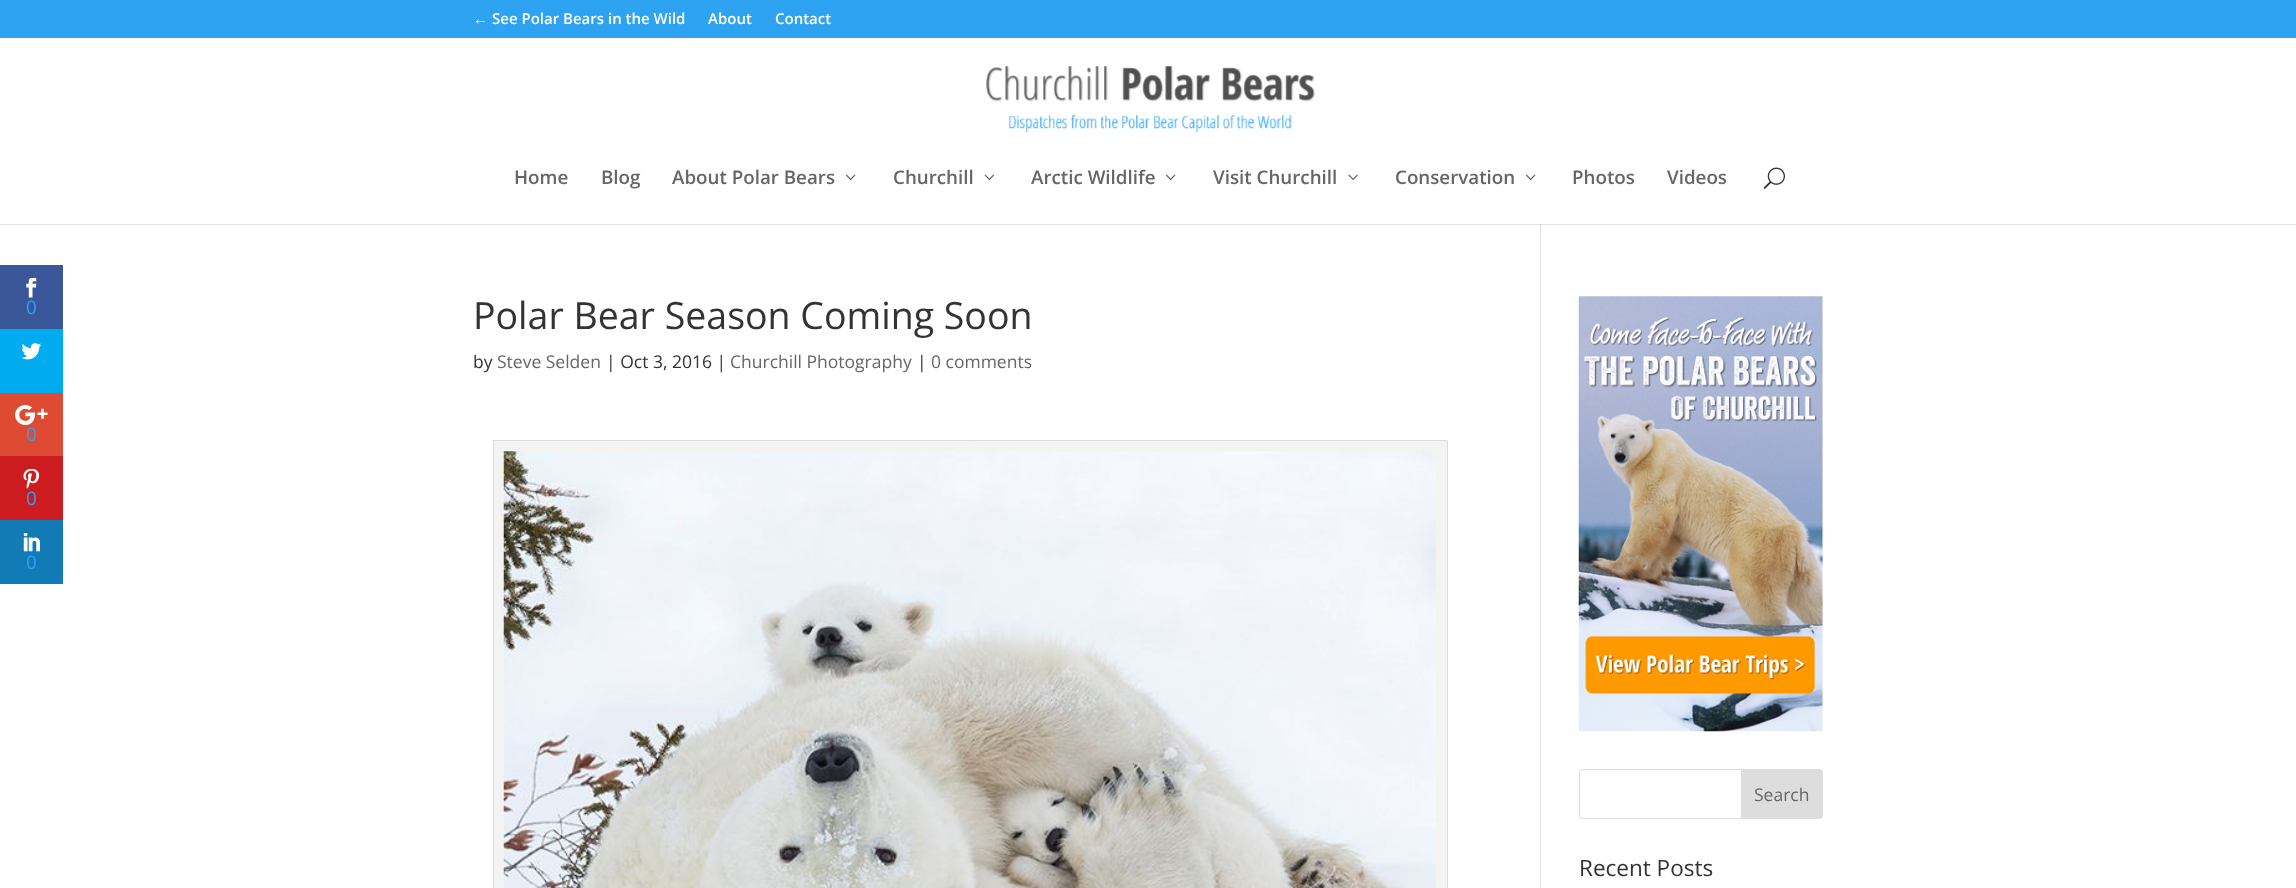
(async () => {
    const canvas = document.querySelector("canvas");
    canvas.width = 2296;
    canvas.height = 888;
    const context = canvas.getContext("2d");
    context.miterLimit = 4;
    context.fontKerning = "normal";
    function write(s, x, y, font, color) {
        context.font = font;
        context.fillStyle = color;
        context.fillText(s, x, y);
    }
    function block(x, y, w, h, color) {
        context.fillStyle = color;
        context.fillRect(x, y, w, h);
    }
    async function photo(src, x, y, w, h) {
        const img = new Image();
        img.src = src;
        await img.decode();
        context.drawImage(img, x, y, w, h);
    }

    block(0, 0, 2296, 888, "rgb(255, 255, 255)");
    block(0, 224, 2296, 1, "rgb(230, 230, 230)");
    block(0, 265, 63, 64, "rgb(58, 87, 154)");
    await photo("media/1.png", 26, 278, 11, 20);
    write("0", 26, 314, "18.75px Open Sans", "rgb(46, 163, 242)");
    block(0, 329, 63, 64, "rgb(0, 171, 240)");
    await photo("media/2.png", 21, 343, 21, 17);
    block(0, 393, 63, 63, "rgb(223, 74, 50)");
    await photo("media/3.png", 15, 405, 33, 20);
    write("0", 26, 441, "18.75px Open Sans", "rgb(46, 163, 242)");
    block(0, 456, 63, 64, "rgb(205, 28, 31)");
    await photo("media/4.png", 23, 469, 16, 20);
    write("0", 26, 505, "18.75px Open Sans", "rgb(46, 163, 242)");
    block(0, 520, 63, 64, "rgb(18, 123, 182)");
    await photo("media/5.png", 23, 533, 17, 19);
    write("0", 26, 569, "18.75px Open Sans", "rgb(46, 163, 242)");
    block(0, 0, 2296, 38, "rgb(46, 163, 242)");
    write("←", 473, 24, "bold 15px Liberation Sans", "rgb(255, 255, 255)");
    write("See Polar Bears in the Wild", 492, 24, "600 15px Open Sans", "rgb(255, 255, 255)");
    write("About", 708, 24, "600 15px Open Sans", "rgb(255, 255, 255)");
    write("Contact", 775, 24, "600 15px Open Sans", "rgb(255, 255, 255)");
    await photo("media/6.png", 986, 66, 329, 67);
    write("Home", 514, 184, "600 18.75px Open Sans", "rgb(102, 102, 102)");
    write("Blog", 601, 184, "600 18.75px Open Sans", "rgb(102, 102, 102)");
    write("About Polar Bears", 672, 184, "600 18.75px Open Sans", "rgb(102, 102, 102)");
    await photo("media/7.png", 846, 174, 10, 6);
    write("Churchill", 893, 184, "600 18.75px Open Sans", "rgb(102, 102, 102)");
    await photo("media/8.png", 984, 174, 10, 6);
    write("Arctic Wildlife", 1031, 184, "600 18.75px Open Sans", "rgb(102, 102, 102)");
    await photo("media/7.png", 1166, 174, 10, 6);
    write("Visit Churchill", 1213, 184, "600 18.75px Open Sans", "rgb(102, 102, 102)");
    await photo("media/9.png", 1348, 174, 10, 6);
    write("Conservation", 1395, 184, "600 18.75px Open Sans", "rgb(102, 102, 102)");
    await photo("media/7.png", 1526, 174, 10, 6);
    write("Photos", 1572, 184, "600 18.75px Open Sans", "rgb(102, 102, 102)");
    write("Videos", 1667, 184, "600 18.75px Open Sans", "rgb(102, 102, 102)");
    await photo("media/10.png", 1763, 167, 22, 22);
    block(1540, 224, 1, 664, "rgb(226, 226, 226)");
    block(1540, 224, 1, 1, "rgb(203, 203, 203)");
    write("Polar Bear Season Coming Soon", 473, 329, "37.5px Open Sans", "rgb(51, 51, 51)");
    write("by", 473, 368, "17.5px Open Sans", "rgb(51, 51, 51)");
    write("Steve Selden", 497, 368, "17.5px Open Sans", "rgb(102, 102, 102)");
    write("| Oct 3, 2016 |", 606, 368, "17.5px Open Sans", "rgb(51, 51, 51)");
    write("Churchill Photography", 730, 368, "17.5px Open Sans", "rgb(102, 102, 102)");
    write("|", 917, 368, "17.5px Open Sans", "rgb(51, 51, 51)");
    write("0 comments", 931, 368, "17.5px Open Sans", "rgb(102, 102, 102)");
    context.fillStyle = "rgb(243, 243, 243)";
    context.beginPath();
    context.rect(493.5, 440.5, 954, 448);
    context.fill();
    context.strokeStyle = "rgb(221, 221, 221)";
    context.stroke();
    await photo("media/11.png", 503, 451, 933, 437);
    await photo("media/12.png", 1578, 296, 245, 436);
    context.beginPath();
    context.roundRect(1579.5, 769.5, 243, 49, 3.5);
    context.stroke();
    context.fillStyle = "rgb(221, 221, 221)";
    context.beginPath();
    context.roundRect(1741.5, 769.5, 81, 49, [0, 3.5, 3.5, 0]);
    context.fill();
    context.stroke();
    write("Search", 1754, 801, "17.5px Open Sans", "rgb(102, 102, 102)");
    write("Recent Posts", 1579, 876, "22.5px Open Sans", "rgb(51, 51, 51)");
})();
